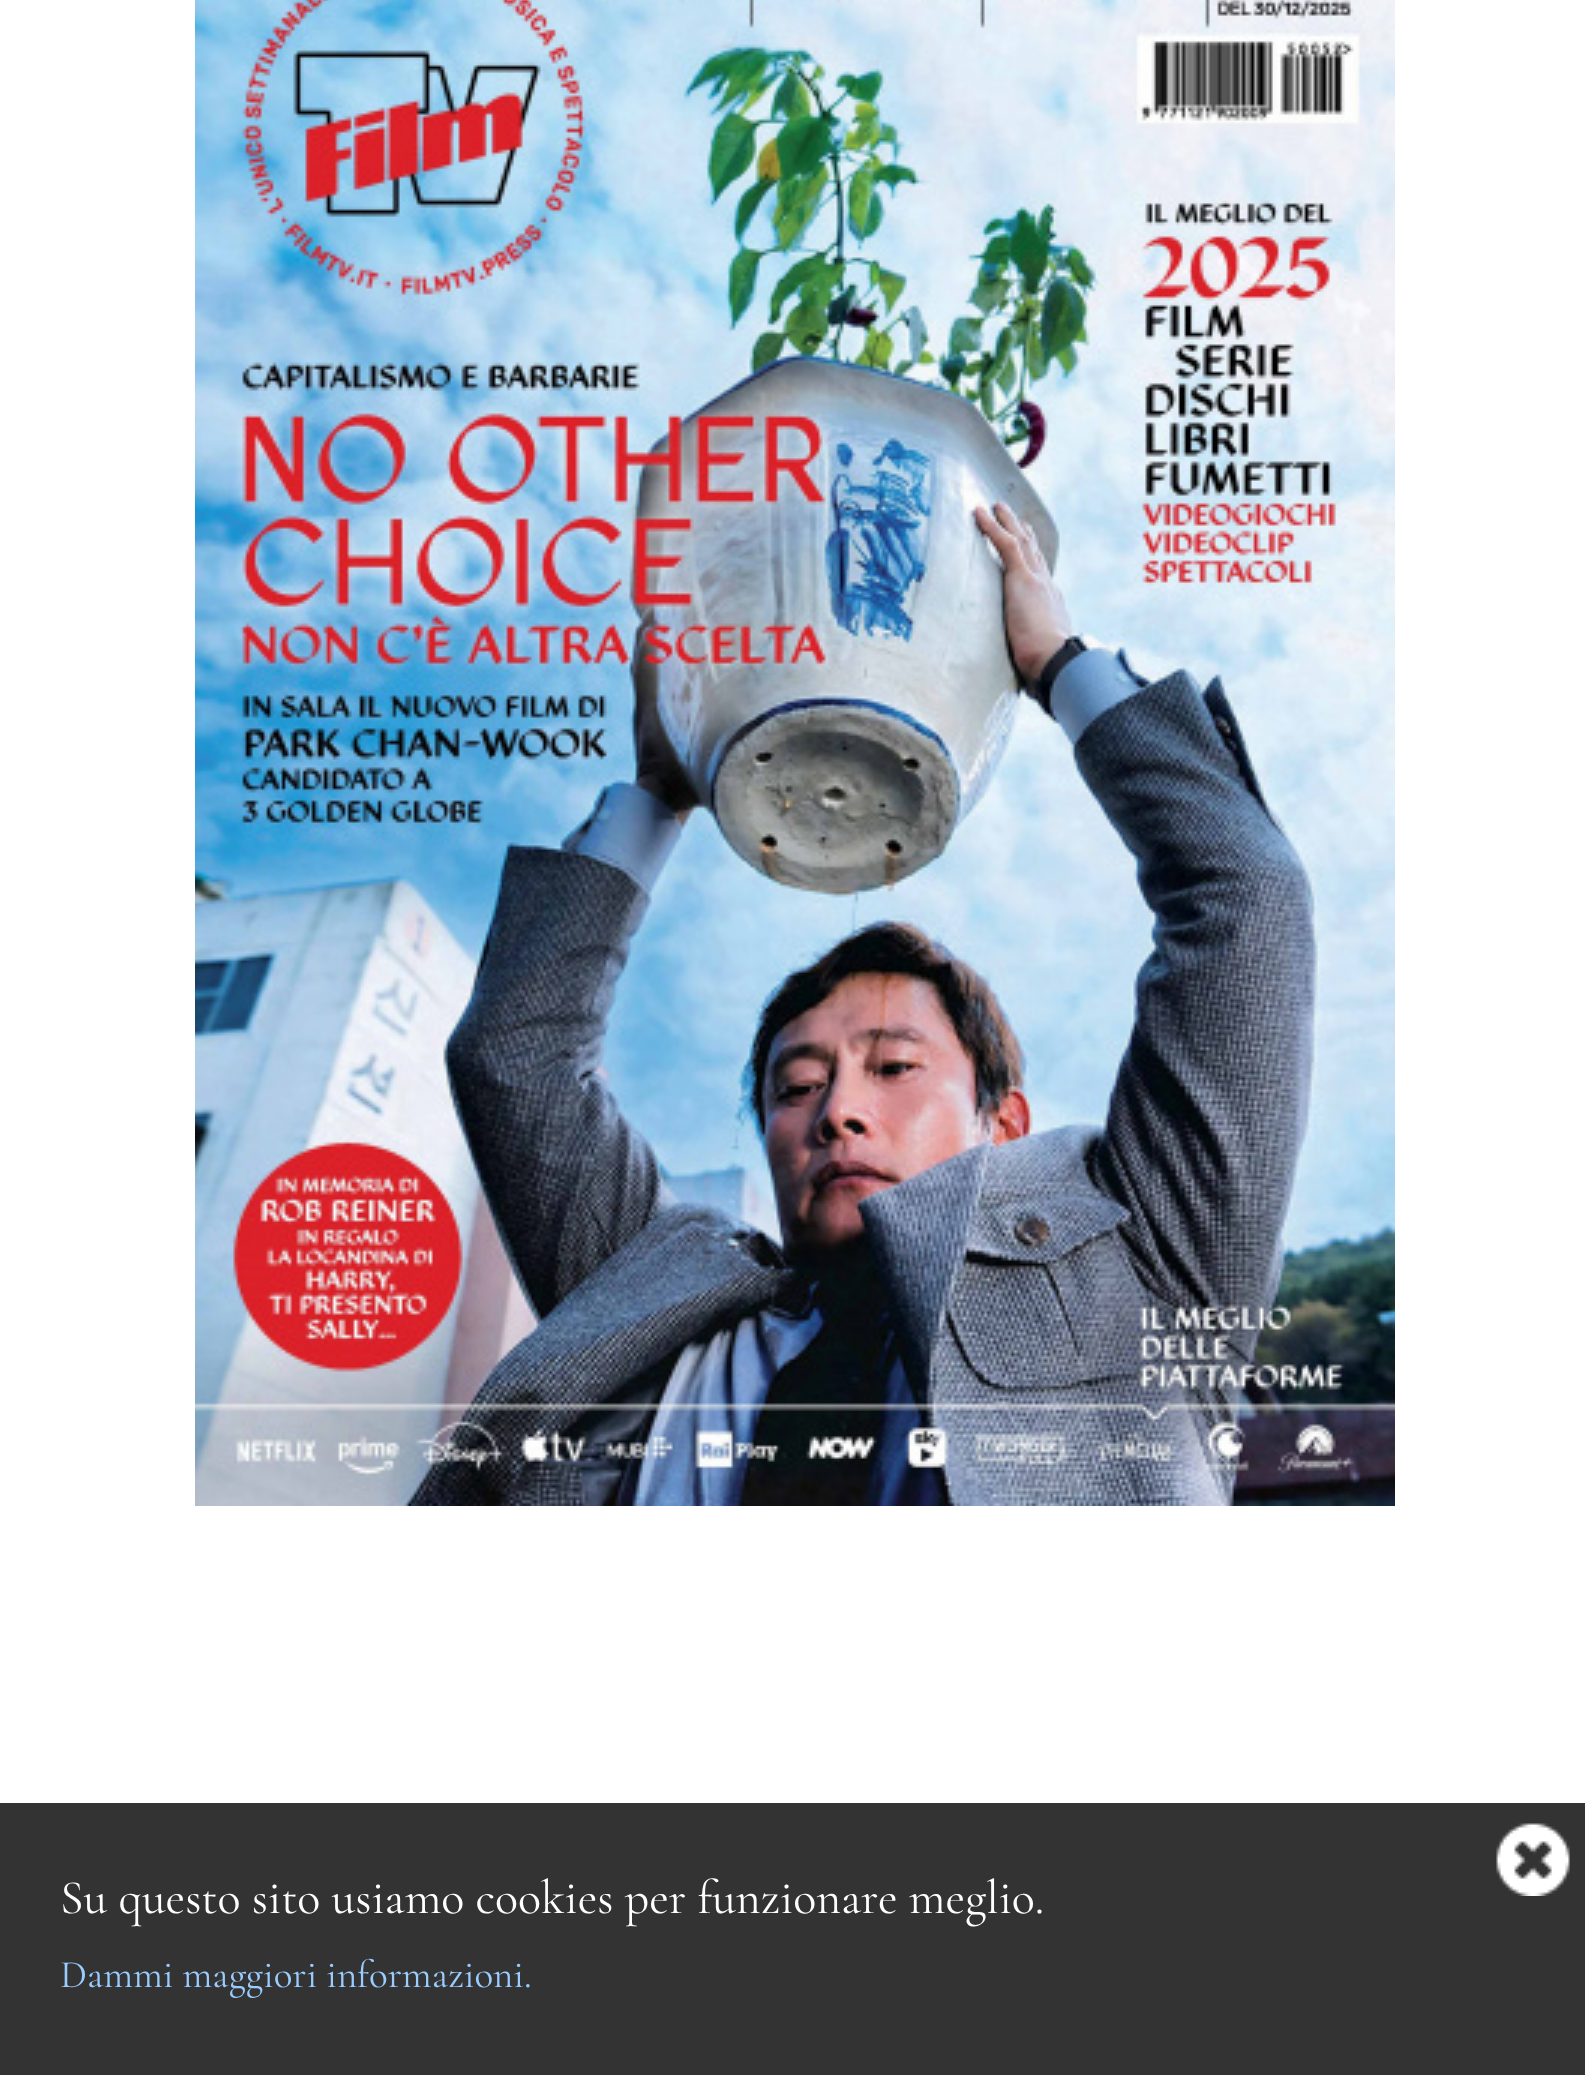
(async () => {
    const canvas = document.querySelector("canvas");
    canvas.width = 1585;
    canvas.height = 2075;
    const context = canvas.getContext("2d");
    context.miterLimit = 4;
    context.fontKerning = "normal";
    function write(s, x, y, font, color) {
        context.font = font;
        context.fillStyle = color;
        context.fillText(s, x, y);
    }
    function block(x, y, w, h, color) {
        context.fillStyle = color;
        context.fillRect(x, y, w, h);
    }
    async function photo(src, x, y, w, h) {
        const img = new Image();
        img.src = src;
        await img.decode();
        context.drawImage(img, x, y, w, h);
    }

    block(0, 0, 1585, 2075, "rgb(255, 255, 255)");
    await photo("media/1.png", 195, 0, 1200, 1506);
    block(0, 1803, 1585, 272, "rgba(0, 0, 0, 0.8)");
    await photo("media/2.png", 1496, 1823, 74, 73);
    write("Su questo sito usiamo cookies per funzionare meglio.", 60, 1913, "48px Cormorant Garamond", "rgb(255, 255, 255)");
    write("Dammi maggiori informazioni.", 60, 1987, "39px Cormorant Garamond", "rgb(153, 204, 255)");
})();
